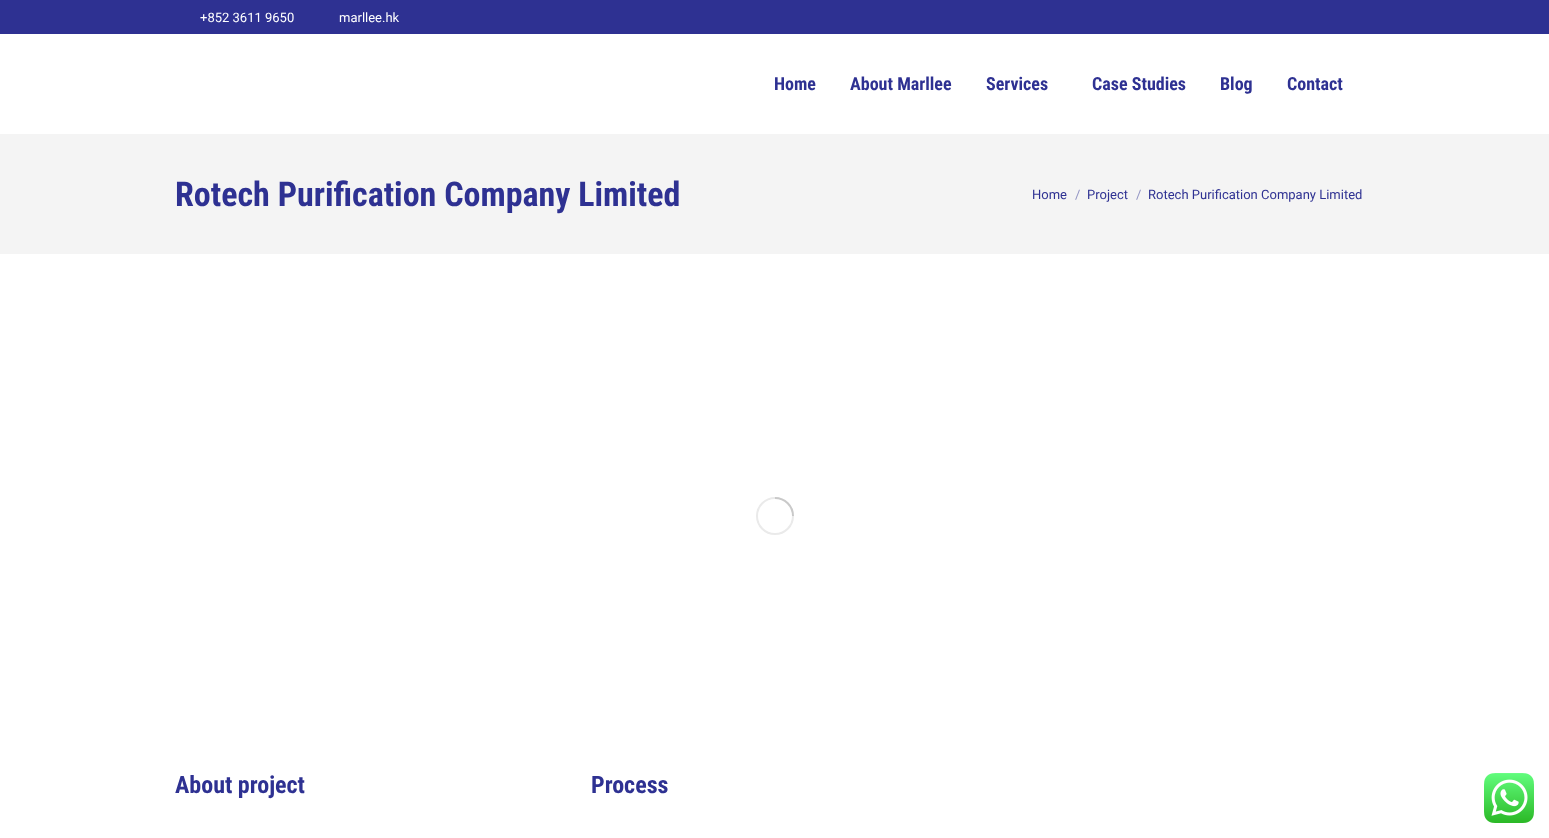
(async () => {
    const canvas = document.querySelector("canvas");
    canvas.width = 1549;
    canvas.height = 838;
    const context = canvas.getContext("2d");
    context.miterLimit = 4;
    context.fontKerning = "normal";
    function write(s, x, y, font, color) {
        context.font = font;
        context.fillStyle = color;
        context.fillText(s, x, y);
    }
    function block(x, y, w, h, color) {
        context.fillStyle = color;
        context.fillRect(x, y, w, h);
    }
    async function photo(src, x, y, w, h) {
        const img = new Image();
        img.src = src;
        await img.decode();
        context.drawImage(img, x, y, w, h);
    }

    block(0, 0, 1549, 838, "rgb(255, 255, 255)");
    block(0, 0, 1549, 34, "rgb(46, 49, 146)");
    write("+852 3611 9650", 200, 22, "13px Roboto", "rgb(255, 255, 255)");
    write("marllee.hk", 339, 22, "13px Roboto", "rgb(255, 255, 255)");
    write("Home", 774, 90, "bold 18px Roboto Condensed", "rgb(46, 49, 146)");
    write("About Marllee", 850, 90, "bold 18px Roboto Condensed", "rgb(46, 49, 146)");
    write("Services", 986, 90, "bold 18px Roboto Condensed", "rgb(46, 49, 146)");
    write("Case Studies", 1092, 90, "bold 18px Roboto Condensed", "rgb(46, 49, 146)");
    write("Blog", 1220, 90, "bold 18px Roboto Condensed", "rgb(46, 49, 146)");
    write("Contact", 1287, 90, "bold 18px Roboto Condensed", "rgb(46, 49, 146)");
    block(0, 134, 1549, 120, "rgb(244, 244, 244)");
    write("Rotech Purification Company Limited", 175, 206, "bold 34px Roboto Condensed", "rgb(46, 49, 146)");
    write("Home", 1032, 199, "13px Roboto", "rgb(46, 49, 146)");
    write("/", 1075, 199, "13px Roboto", "rgb(145, 147, 195)");
    write("Project", 1087, 199, "13px Roboto", "rgb(46, 49, 146)");
    write("/", 1136, 199, "13px Roboto", "rgb(145, 147, 195)");
    write("Rotech Purification Company Limited", 1148, 199, "13px Roboto", "rgb(46, 49, 146)");
    context.beginPath();
    context.arc(775, 516, 18, 0, Math.PI * 2);
    context.strokeStyle = "rgb(234, 234, 234)";
    context.lineWidth = 2;
    context.stroke();
    context.beginPath();
    context.moveTo(793, 516);
    context.bezierCurveTo(793, 506, 785, 498, 775, 498);
    context.strokeStyle = "rgba(102, 102, 102, 0.25)";
    context.stroke();
    write("About project", 175, 793, "bold 24px Roboto Condensed", "rgb(46, 49, 146)");
    write("Process", 591, 793, "bold 24px Roboto Condensed", "rgb(46, 49, 146)");
    await photo("media/1.png", 1484, 773, 50, 50);
})();
